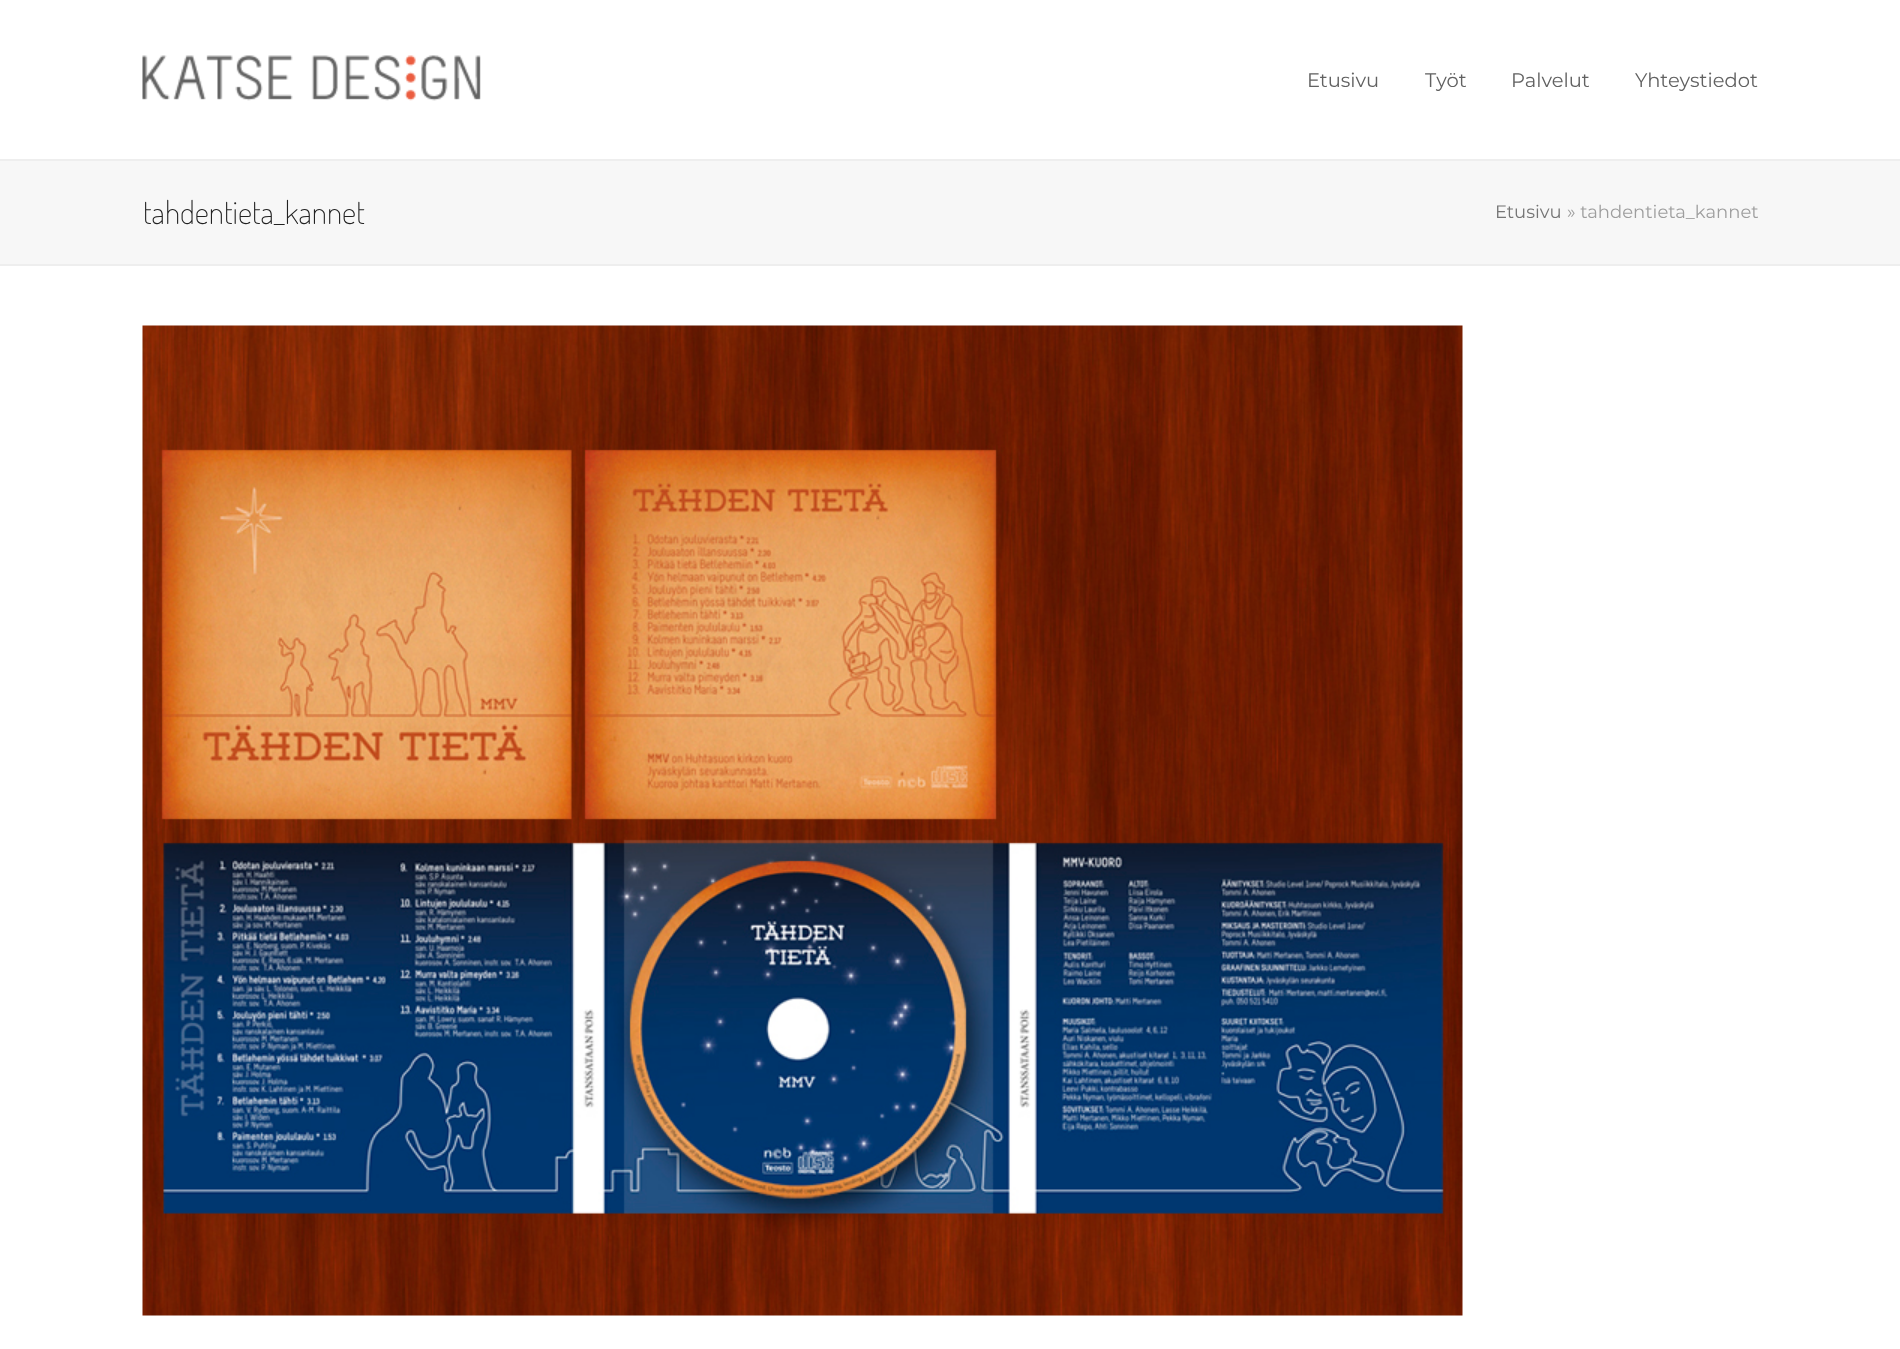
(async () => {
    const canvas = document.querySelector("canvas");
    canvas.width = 1900;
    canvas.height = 1349;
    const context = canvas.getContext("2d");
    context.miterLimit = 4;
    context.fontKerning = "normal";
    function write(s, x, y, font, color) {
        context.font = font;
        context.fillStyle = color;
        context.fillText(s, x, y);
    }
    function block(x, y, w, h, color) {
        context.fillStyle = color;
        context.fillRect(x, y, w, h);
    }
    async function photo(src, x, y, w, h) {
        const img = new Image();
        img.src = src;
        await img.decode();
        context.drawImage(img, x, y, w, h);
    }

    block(0, 0, 1900, 1349, "rgb(255, 255, 255)");
    await photo("media/1.png", 142, 55, 339, 46);
    write("Etusivu", 1307, 87, "19.5px Montserrat", "rgb(97, 97, 97)");
    write("Työt", 1425, 87, "19.5px Montserrat", "rgb(97, 97, 97)");
    write("Palvelut", 1511, 87, "19.5px Montserrat", "rgb(97, 97, 97)");
    write("Yhteystiedot", 1635, 87, "19.5px Montserrat", "rgb(97, 97, 97)");
    block(0, 161, 1900, 103, "rgb(247, 247, 247)");
    block(0, 159, 1900, 2, "rgb(238, 238, 238)");
    block(0, 264, 1900, 2, "rgb(238, 238, 238)");
    write("tahdentieta_kannet", 143, 224, "200 31.5px Dosis", "rgb(34, 34, 34)");
    write("Etusivu", 1495, 218, "18px Montserrat", "rgb(117, 117, 117)");
    write("» tahdentieta_kannet", 1567, 218, "18px Montserrat", "rgb(158, 158, 158)");
    await photo("media/2.png", 142, 325, 1321, 991);
})();
